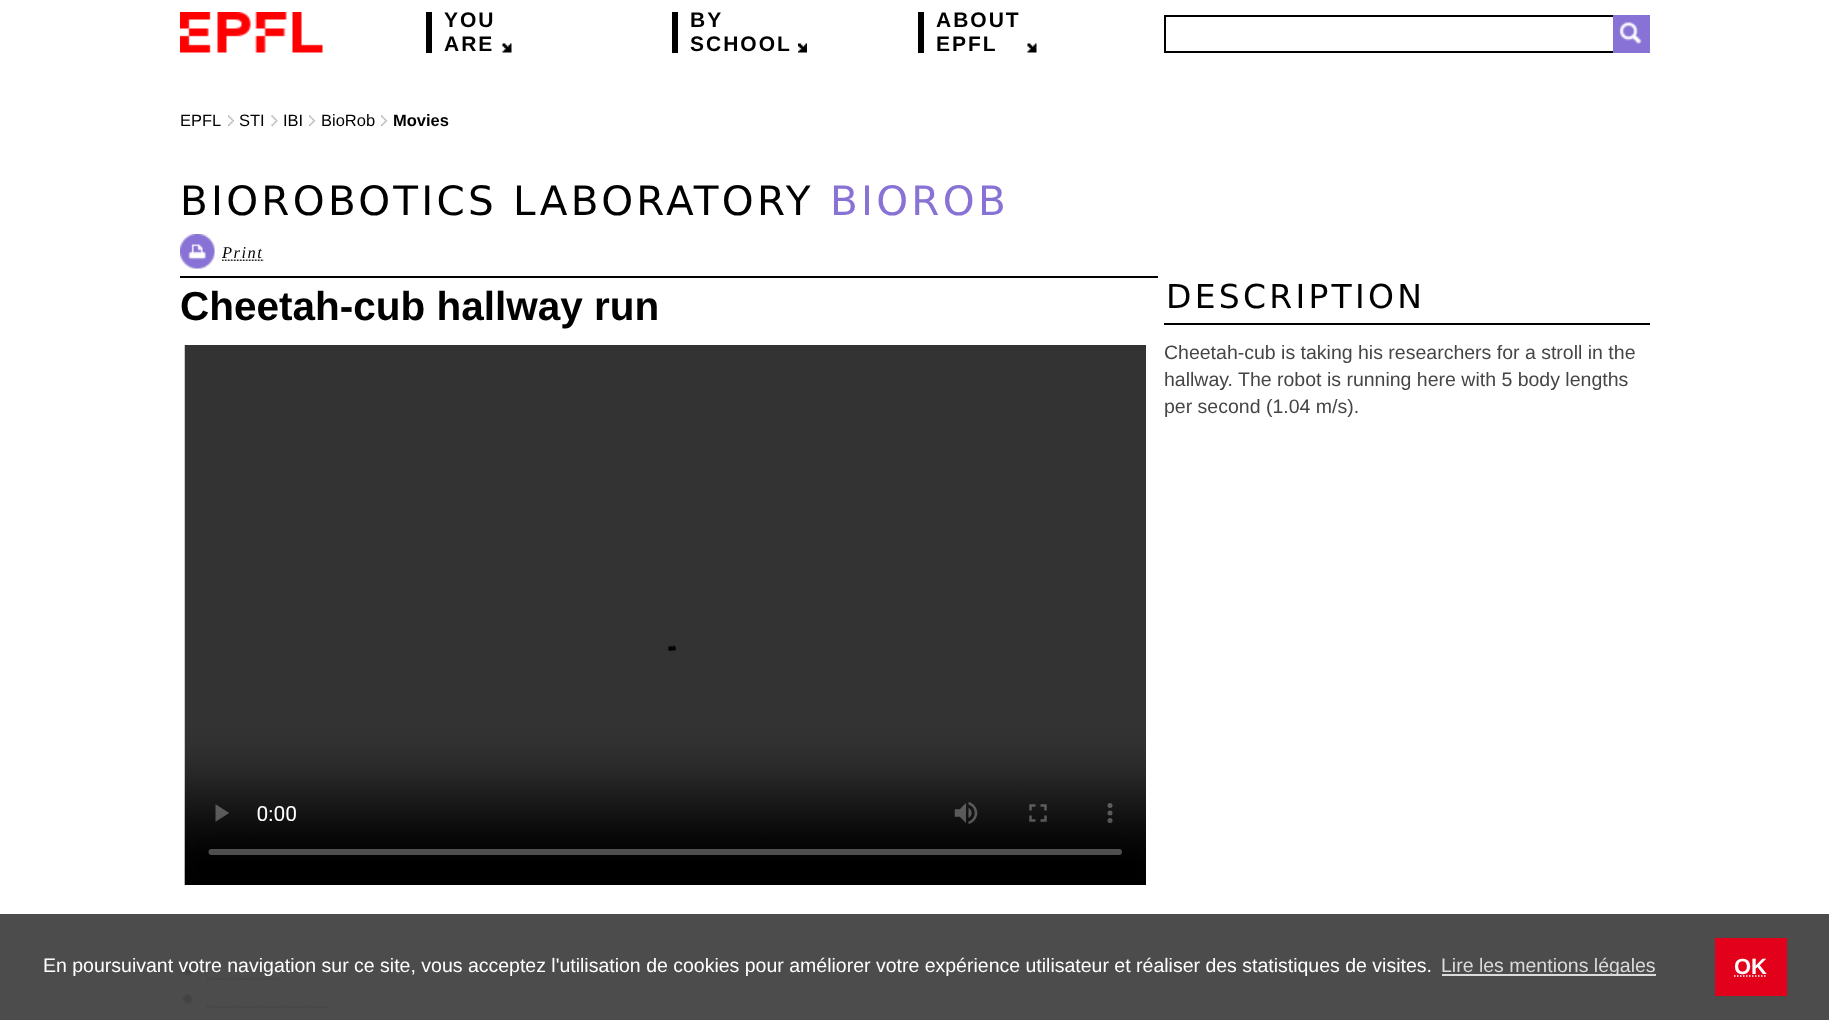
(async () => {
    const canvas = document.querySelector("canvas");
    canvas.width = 1829;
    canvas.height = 1020;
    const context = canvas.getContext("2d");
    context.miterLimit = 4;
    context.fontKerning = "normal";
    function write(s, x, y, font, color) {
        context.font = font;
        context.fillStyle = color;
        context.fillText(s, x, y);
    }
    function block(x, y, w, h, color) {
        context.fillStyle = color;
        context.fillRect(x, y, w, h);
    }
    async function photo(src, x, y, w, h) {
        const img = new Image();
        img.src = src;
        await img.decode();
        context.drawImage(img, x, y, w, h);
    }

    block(0, 0, 1829, 1020, "rgb(255, 255, 255)");
    block(0, 914, 1829, 106, "rgb(76, 76, 76)");
    await photo("media/1.png", 180, 12, 143, 41);
    block(426, 12, 6, 41, "rgb(0, 0, 0)");
    context.letterSpacing = "2px";
    write("YOU", 444, 27, "bold 21px Liberation Sans", "rgb(0, 0, 0)");
    write("ARE", 444, 51, "bold 21px Liberation Sans", "rgb(0, 0, 0)");
    await photo("media/2.png", 502, 43, 10, 10);
    block(672, 12, 6, 41, "rgb(0, 0, 0)");
    write("BY", 690, 27, "bold 21px Liberation Sans", "rgb(0, 0, 0)");
    write("SCHOOL", 690, 51, "bold 21px Liberation Sans", "rgb(0, 0, 0)");
    await photo("media/3.png", 798, 43, 9, 10);
    block(918, 12, 6, 41, "rgb(0, 0, 0)");
    write("ABOUT", 936, 27, "bold 21px Liberation Sans", "rgb(0, 0, 0)");
    write("EPFL", 936, 51, "bold 21px Liberation Sans", "rgb(0, 0, 0)");
    await photo("media/2.png", 1027, 43, 10, 10);
    block(1164, 15, 449, 2, "rgb(0, 0, 0)");
    block(1164, 51, 449, 2, "rgb(0, 0, 0)");
    block(1164, 15, 2, 38, "rgb(0, 0, 0)");
    block(1613, 15, 37, 38, "rgb(137, 114, 213)");
    await photo("media/4.png", 1619, 22, 23, 22);
    context.letterSpacing = "0px";
    write("EPFL", 180, 126, "16.5px Liberation Sans", "rgb(0, 0, 0)");
    await photo("media/5.png", 228, 115, 6, 11);
    write("STI", 239, 126, "16.5px Liberation Sans", "rgb(0, 0, 0)");
    await photo("media/6.png", 271, 115, 7, 11);
    write("IBI", 283, 126, "16.5px Liberation Sans", "rgb(0, 0, 0)");
    await photo("media/7.png", 309, 115, 6, 11);
    write("BioRob", 321, 126, "16.5px Liberation Sans", "rgb(0, 0, 0)");
    await photo("media/7.png", 381, 115, 6, 11);
    write("Movies", 393, 126, "bold 16.5px Liberation Sans", "rgb(0, 0, 0)");
    context.letterSpacing = "3.25px";
    write("BIOROBOTICS LABORATORY", 180, 215, "40.5px DejaVu Sans", "rgb(0, 0, 0)");
    write("BIOROB", 830, 215, "40.5px DejaVu Sans", "rgb(137, 114, 213)");
    await photo("media/8.png", 180, 234, 35, 35);
    await photo("media/9.png", 222, 259, 42, 2);
    context.letterSpacing = "1.5px";
    write("Print", 222, 258, "italic 16.5px Liberation Serif", "rgb(0, 0, 0)");
    block(180, 276, 978, 2, "rgb(0, 0, 0)");
    context.letterSpacing = "0px";
    write("Cheetah-cub hallway run", 180, 320, "bold 40.5px Liberation Sans", "rgb(0, 0, 0)");
    await photo("media/10.png", 184, 345, 962, 540);
    await photo("media/11.png", 183, 966, 9, 10);
    context.beginPath();
    context.moveTo(207, 979);
    context.lineTo(282, 979);
    context.strokeStyle = "rgb(66, 66, 66)";
    context.lineWidth = 1.5;
    context.setLineDash([1.5, 1.5]);
    context.stroke();
    await photo("media/12.png", 183, 994, 9, 10);
    context.beginPath();
    context.moveTo(207, 1007);
    context.lineTo(328.5, 1007);
    context.stroke();
    block(1164, 323, 486, 2, "rgb(0, 0, 0)");
    context.letterSpacing = "3.25px";
    write("DESCRIPTION", 1166, 308, "33px DejaVu Sans", "rgb(0, 0, 0)");
    context.letterSpacing = "0px";
    write("Cheetah-cub is taking his researchers for a stroll in the", 1164, 359, "19.5px Liberation Sans", "rgb(69, 69, 69)");
    write("hallway.", 1164, 386, "19.5px Liberation Sans", "rgb(69, 69, 69)");
    write("The robot is running here with 5 body lengths", 1238, 386, "19.5px Liberation Sans", "rgb(69, 69, 69)");
    write("per second (1.04 m/s).", 1164, 413, "19.5px Liberation Sans", "rgb(69, 69, 69)");
    write("En poursuivant votre navigation sur ce site, vous acceptez l'utilisation de cookies pour améliorer votre expérience utilisateur et réaliser des statistiques de visites.", 43, 972, "19.5px Liberation Sans", "rgb(255, 255, 255)");
    block(1442, 974, 214, 2, "rgb(219, 219, 219)");
    write("Lire les mentions légales", 1441, 972, "19.5px Liberation Sans", "rgb(219, 219, 219)");
    block(1715, 938, 72, 58, "rgb(226, 0, 26)");
    write("OK", 1734, 974, "bold 22px Liberation Sans", "rgb(255, 255, 255)");
    context.beginPath();
    context.moveTo(1734, 976);
    context.lineTo(1766.5, 976);
    context.strokeStyle = "rgb(255, 255, 255)";
    context.stroke();
})();
